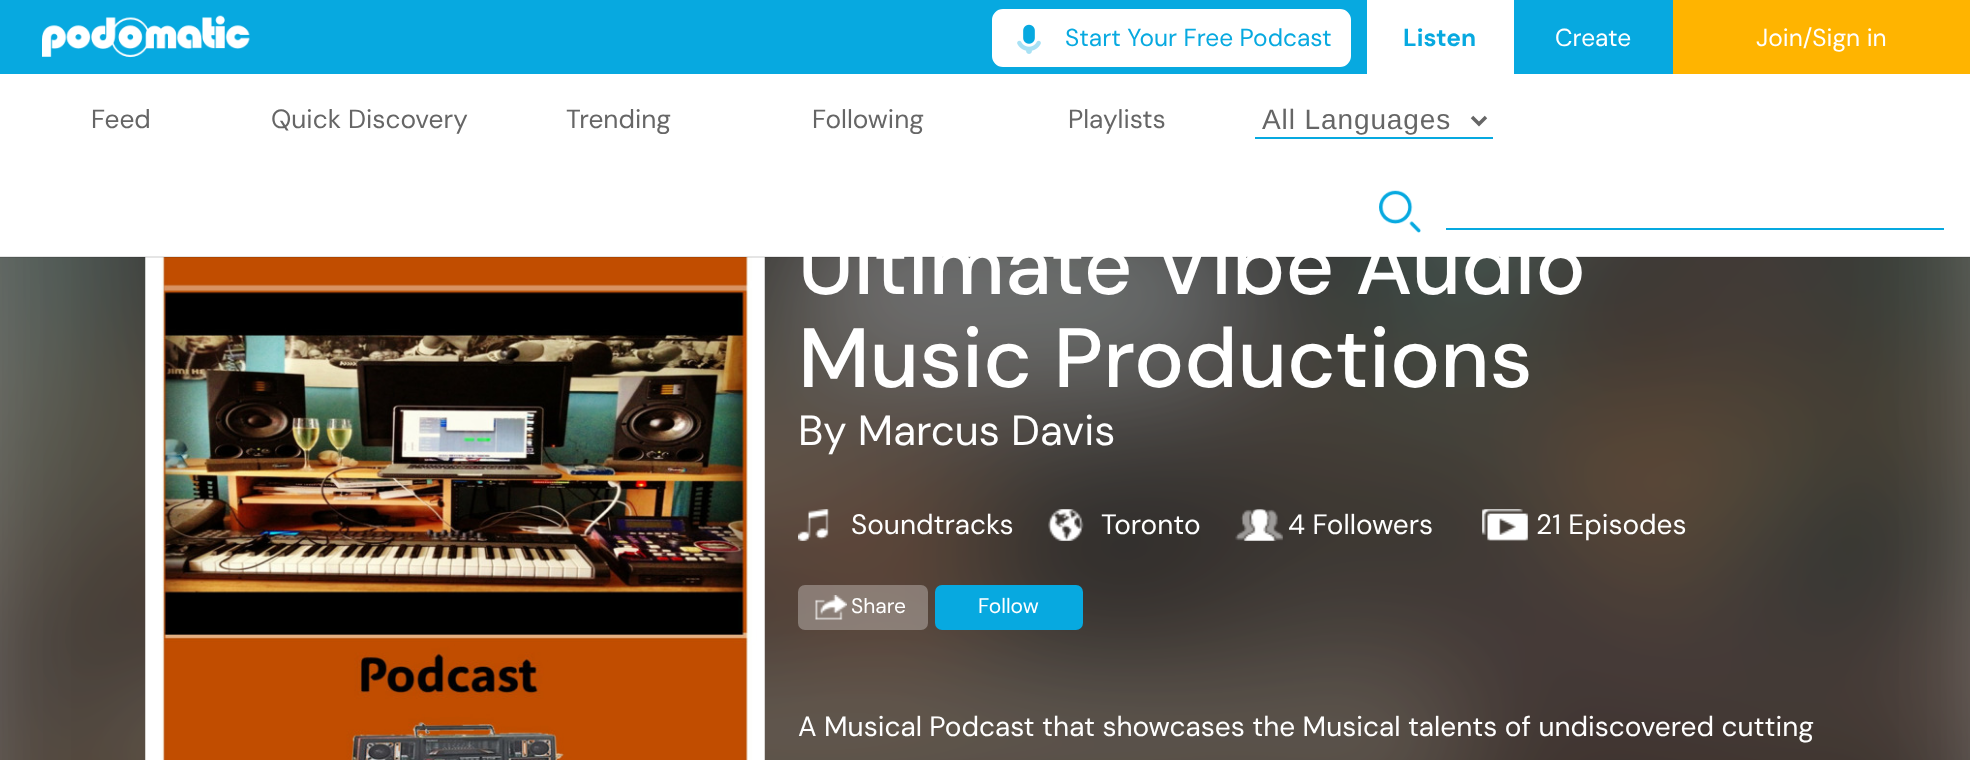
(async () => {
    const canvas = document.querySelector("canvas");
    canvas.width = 1970;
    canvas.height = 760;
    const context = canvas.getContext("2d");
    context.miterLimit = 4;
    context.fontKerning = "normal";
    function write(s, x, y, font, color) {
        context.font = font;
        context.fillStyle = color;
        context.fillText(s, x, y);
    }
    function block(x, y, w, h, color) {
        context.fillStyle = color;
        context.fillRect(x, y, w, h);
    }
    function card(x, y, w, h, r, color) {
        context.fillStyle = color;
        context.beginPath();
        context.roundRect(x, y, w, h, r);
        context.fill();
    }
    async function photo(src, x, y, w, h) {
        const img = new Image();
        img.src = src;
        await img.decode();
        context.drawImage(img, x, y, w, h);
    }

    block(0, 0, 1970, 760, "rgb(135, 135, 135)");
    block(0, 0, 1673, 74, "rgb(7, 169, 224)");
    await photo("media/1.png", 42, 15, 208, 43);
    context.fillStyle = "rgb(255, 255, 255)";
    context.beginPath();
    context.roundRect(993, 10, 357, 56, 10);
    context.fill();
    context.strokeStyle = "rgb(255, 255, 255)";
    context.lineWidth = 2;
    context.stroke();
    await photo("media/2.png", 1017, 24, 24, 30);
    write("Start Your Free Podcast", 1065, 46, "24.5px DM Sans", "rgb(7, 169, 224)");
    block(1367, 0, 147, 74, "rgb(255, 255, 255)");
    write("Listen", 1403, 46, "bold 24.5px DM Sans", "rgb(7, 169, 224)");
    write("Create", 1555, 46, "24.5px DM Sans", "rgb(255, 255, 255)");
    block(1673, 0, 297, 74, "rgb(255, 180, 0)");
    write("Join/Sign in", 1756, 46, "24.5px DM Sans", "rgb(255, 255, 255)");
    block(0, 74, 1970, 183, "rgb(255, 255, 255)");
    await photo("media/10.png", 0, 257, 1970, 503);
    await photo("media/4.png", 145, 257, 620, 503);
    block(0, 256, 1970, 2, "rgba(0, 0, 0, 0.1)");
    write("Feed", 91, 128, "26.25px DM Sans", "rgb(102, 102, 102)");
    write("Quick Discovery", 271, 128, "26.25px DM Sans", "rgb(102, 102, 102)");
    write("Trending", 566, 128, "26.25px DM Sans", "rgb(102, 102, 102)");
    write("Following", 812, 128, "26.25px DM Sans", "rgb(102, 102, 102)");
    write("Playlists", 1068, 128, "26.25px DM Sans", "rgb(102, 102, 102)");
    block(1255, 137, 238, 2, "rgb(7, 169, 224)");
    context.beginPath();
    context.moveTo(1472, 117);
    context.lineTo(1479, 124);
    context.lineTo(1486, 117);
    context.strokeStyle = "rgb(102, 102, 102)";
    context.lineWidth = 3.5;
    context.stroke();
    context.letterSpacing = "0.9px";
    write("All Languages", 1262, 129, "28px Liberation Sans", "rgb(102, 102, 102)");
    await photo("media/3.png", 1379, 190, 42, 43);
    block(1446, 228, 498, 2, "rgb(7, 169, 224)");
    context.letterSpacing = "0px";
    write("Ultimate Vibe Audio", 798, 294, "500 84px DM Sans", "rgb(255, 255, 255)");
    write("Music Productions", 798, 387, "500 84px DM Sans", "rgb(255, 255, 255)");
    write("By Marcus Davis", 798, 445, "42px DM Sans", "rgb(255, 255, 255)");
    await photo("media/5.png", 798, 509, 32, 32);
    write("Soundtracks", 851, 534, "28px DM Sans", "rgb(255, 255, 255)");
    await photo("media/6.png", 1048, 509, 36, 32);
    write("Toronto", 1101, 534, "28px DM Sans", "rgb(255, 255, 255)");
    await photo("media/7.png", 1235, 509, 48, 32);
    write("4 Followers", 1288, 534, "28px DM Sans", "rgb(255, 255, 255)");
    await photo("media/8.png", 1482, 509, 46, 32);
    write("21 Episodes", 1536, 534, "28px DM Sans", "rgb(255, 255, 255)");
    card(798, 585, 130, 45, 7, "rgba(255, 255, 255, 0.3)");
    await photo("media/9.png", 815, 595, 32, 25);
    write("Share", 851, 613, "21px DM Sans", "rgb(255, 255, 255)");
    card(935, 585, 148, 45, 7, "rgb(7, 169, 224)");
    write("Follow", 978, 613, "21px DM Sans", "rgb(255, 255, 255)");
    write("A Musical Podcast that showcases the Musical talents of undiscovered cutting", 798, 736, "28px DM Sans", "rgb(255, 255, 255)");
})();
